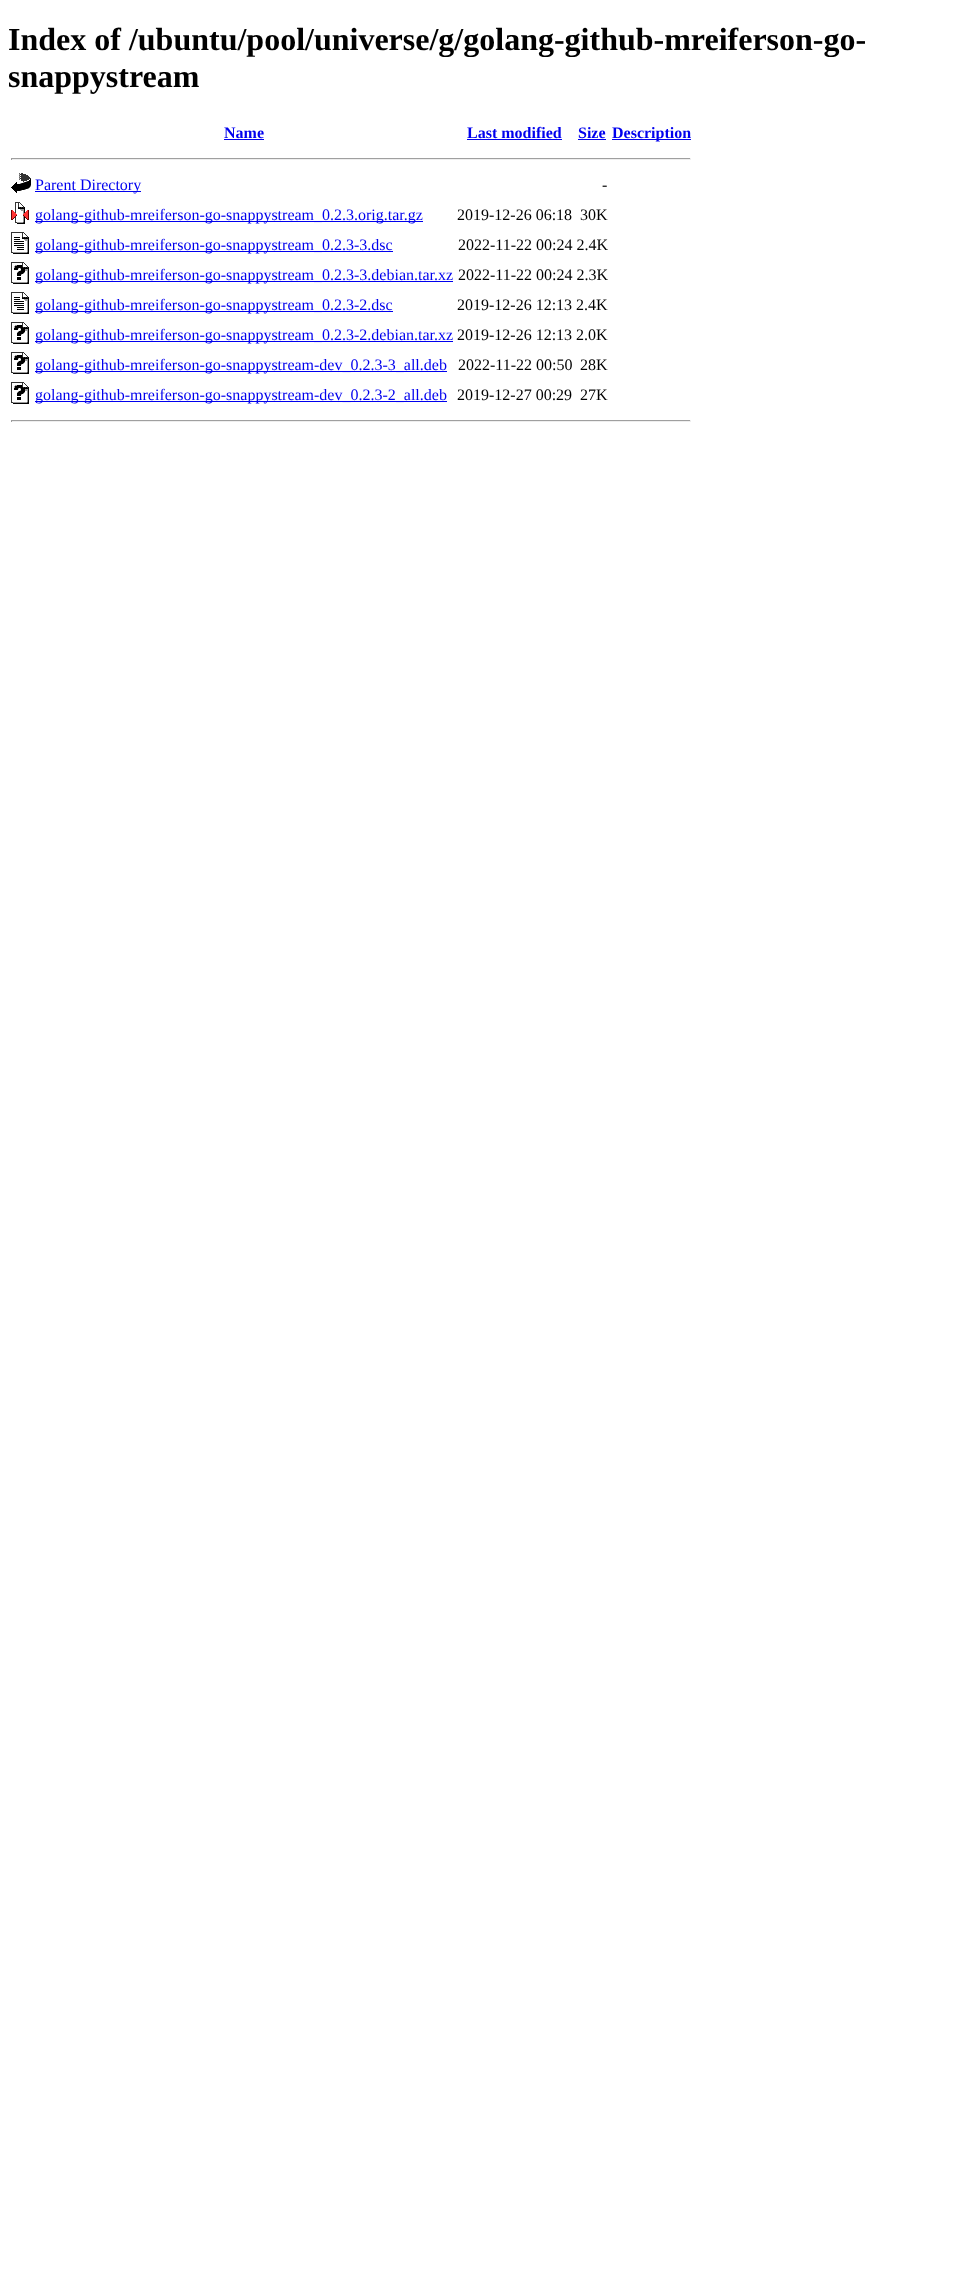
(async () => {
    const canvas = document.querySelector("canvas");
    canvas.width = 971;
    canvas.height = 2276;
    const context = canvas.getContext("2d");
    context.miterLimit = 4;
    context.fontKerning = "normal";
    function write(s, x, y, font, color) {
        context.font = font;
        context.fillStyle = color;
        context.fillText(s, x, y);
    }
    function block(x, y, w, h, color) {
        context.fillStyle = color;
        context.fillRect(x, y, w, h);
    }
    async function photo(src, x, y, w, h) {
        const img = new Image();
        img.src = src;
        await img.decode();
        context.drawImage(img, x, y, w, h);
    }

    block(0, 0, 971, 2276, "rgb(255, 255, 255)");
    write("Index of /ubuntu/pool/universe/g/golang-github-mreiferson-go-", 8, 50, "bold 32px Liberation Serif", "rgb(0, 0, 0)");
    write("snappystream", 8, 87, "bold 32px Liberation Serif", "rgb(0, 0, 0)");
    write("Name", 224, 138, "bold 16px Liberation Serif", "rgb(0, 0, 238)");
    block(224, 139, 40, 1, "rgb(0, 0, 238)");
    write("Last modified", 467, 138, "bold 16px Liberation Serif", "rgb(0, 0, 238)");
    block(467, 139, 95, 1, "rgb(0, 0, 238)");
    write("Size", 578, 138, "bold 16px Liberation Serif", "rgb(0, 0, 238)");
    block(578, 139, 28, 1, "rgb(0, 0, 238)");
    block(612, 139, 79, 1, "rgb(0, 0, 238)");
    write("Description", 612, 138, "bold 16px Liberation Serif", "rgb(0, 0, 238)");
    block(11, 158, 680, 1, "rgb(159, 159, 159)");
    block(690, 158, 1, 2, "rgb(238, 238, 238)");
    block(11, 159, 680, 1, "rgb(238, 238, 238)");
    block(11, 158, 1, 2, "rgb(159, 159, 159)");
    await photo("media/1.png", 11, 173, 20, 20);
    block(35, 191, 106, 1, "rgb(0, 0, 238)");
    write("Parent Directory", 35, 190, "16px Liberation Serif", "rgb(0, 0, 238)");
    write("-", 602, 190, "16px Liberation Serif", "rgb(0, 0, 0)");
    await photo("media/2.png", 11, 202, 18, 22);
    block(35, 221, 388, 1, "rgb(0, 0, 238)");
    write("golang-github-mreiferson-go-snappystream_0.2.3.orig.tar.gz", 35, 220, "16px Liberation Serif", "rgb(0, 0, 238)");
    write("2019-12-26 06:18", 457, 220, "16px Liberation Serif", "rgb(0, 0, 0)");
    write("30K", 580, 220, "16px Liberation Serif", "rgb(0, 0, 0)");
    await photo("media/3.png", 11, 232, 18, 22);
    block(35, 251, 358, 1, "rgb(0, 0, 238)");
    write("golang-github-mreiferson-go-snappystream_0.2.3-3.dsc", 35, 250, "16px Liberation Serif", "rgb(0, 0, 238)");
    write("2022-11-22 00:24 2.4K", 458, 250, "16px Liberation Serif", "rgb(0, 0, 0)");
    await photo("media/4.png", 11, 262, 18, 22);
    block(35, 281, 418, 1, "rgb(0, 0, 238)");
    write("golang-github-mreiferson-go-snappystream_0.2.3-3.debian.tar.xz", 35, 280, "16px Liberation Serif", "rgb(0, 0, 238)");
    write("2022-11-22 00:24 2.3K", 458, 280, "16px Liberation Serif", "rgb(0, 0, 0)");
    await photo("media/3.png", 11, 292, 18, 22);
    block(35, 311, 358, 1, "rgb(0, 0, 238)");
    write("golang-github-mreiferson-go-snappystream_0.2.3-2.dsc", 35, 310, "16px Liberation Serif", "rgb(0, 0, 238)");
    write("2019-12-26 12:13 2.4K", 457, 310, "16px Liberation Serif", "rgb(0, 0, 0)");
    await photo("media/4.png", 11, 322, 18, 22);
    block(35, 341, 418, 1, "rgb(0, 0, 238)");
    write("golang-github-mreiferson-go-snappystream_0.2.3-2.debian.tar.xz", 35, 340, "16px Liberation Serif", "rgb(0, 0, 238)");
    write("2019-12-26 12:13 2.0K", 457, 340, "16px Liberation Serif", "rgb(0, 0, 0)");
    await photo("media/4.png", 11, 352, 18, 22);
    block(35, 371, 412, 1, "rgb(0, 0, 238)");
    write("golang-github-mreiferson-go-snappystream-dev_0.2.3-3_all.deb", 35, 370, "16px Liberation Serif", "rgb(0, 0, 238)");
    write("2022-11-22 00:50", 458, 370, "16px Liberation Serif", "rgb(0, 0, 0)");
    write("28K", 580, 370, "16px Liberation Serif", "rgb(0, 0, 0)");
    await photo("media/4.png", 11, 382, 18, 22);
    block(35, 401, 412, 1, "rgb(0, 0, 238)");
    write("golang-github-mreiferson-go-snappystream-dev_0.2.3-2_all.deb", 35, 400, "16px Liberation Serif", "rgb(0, 0, 238)");
    write("2019-12-27 00:29", 457, 400, "16px Liberation Serif", "rgb(0, 0, 0)");
    write("27K", 580, 400, "16px Liberation Serif", "rgb(0, 0, 0)");
    block(11, 420, 680, 1, "rgb(159, 159, 159)");
    block(690, 420, 1, 2, "rgb(238, 238, 238)");
    block(11, 421, 680, 1, "rgb(238, 238, 238)");
    block(11, 420, 1, 2, "rgb(159, 159, 159)");
})();
